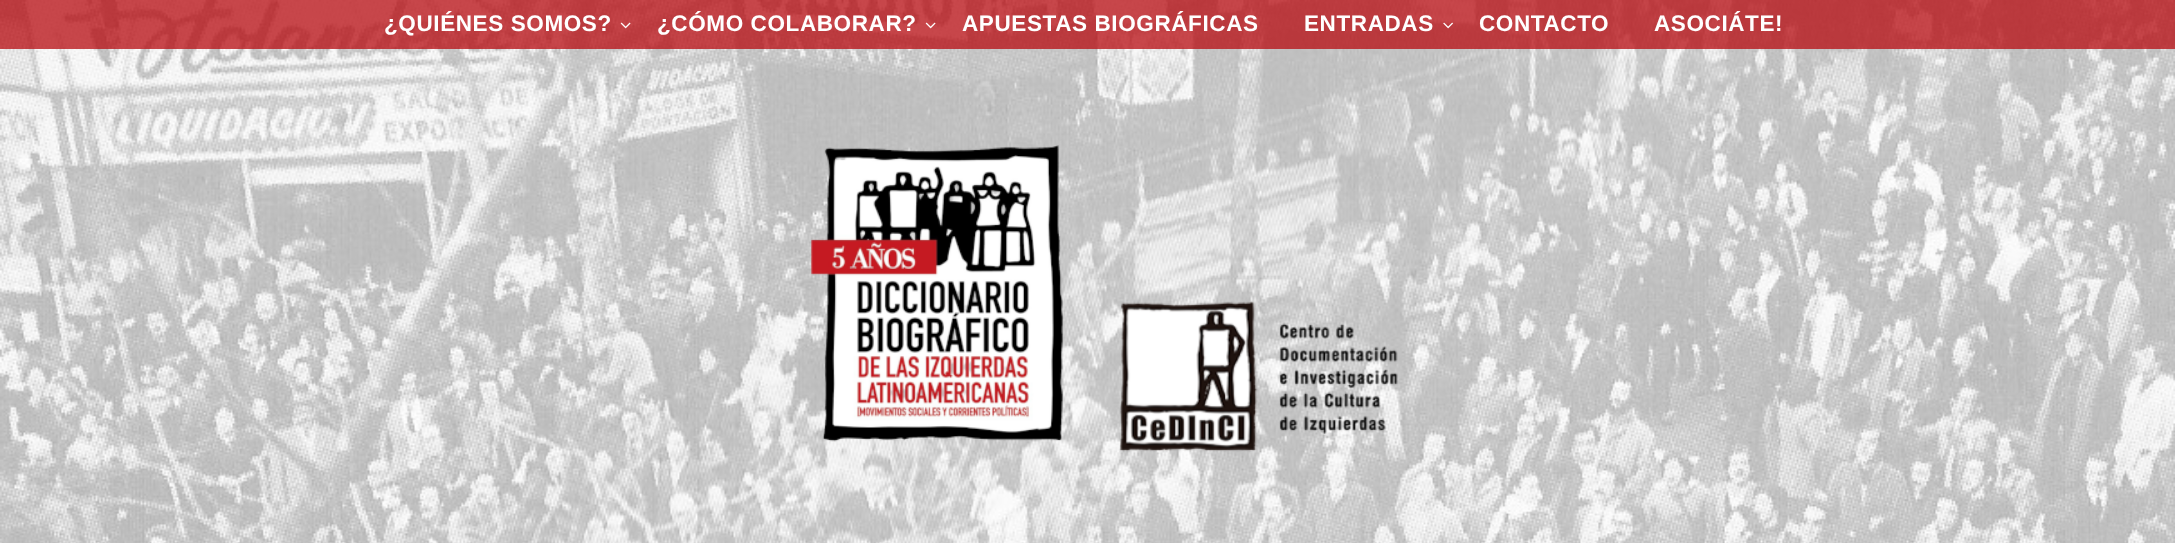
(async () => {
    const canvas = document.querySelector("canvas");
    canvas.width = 2175;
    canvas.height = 543;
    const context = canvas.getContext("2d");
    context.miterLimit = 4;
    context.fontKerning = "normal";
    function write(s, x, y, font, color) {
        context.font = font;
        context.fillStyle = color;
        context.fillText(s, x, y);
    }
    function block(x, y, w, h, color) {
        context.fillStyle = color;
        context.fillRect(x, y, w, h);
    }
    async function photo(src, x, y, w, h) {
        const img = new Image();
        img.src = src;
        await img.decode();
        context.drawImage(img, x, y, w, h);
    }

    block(0, 0, 2175, 543, "rgb(255, 255, 255)");
    await photo("media/1.png", 0, 0, 2175, 543);
    block(0, 0, 2175, 49, "rgba(183, 11, 16, 0.75)");
    context.letterSpacing = "0.6px";
    write("¿QUIÉNES SOMOS?", 384, 31, "bold 22.5px Liberation Sans", "rgb(255, 255, 255)");
    await photo("media/2.png", 620, 22, 11, 7);
    write("¿CÓMO COLABORAR?", 657, 31, "bold 22.5px Liberation Sans", "rgb(255, 255, 255)");
    await photo("media/3.png", 925, 22, 11, 7);
    write("APUESTAS BIOGRÁFICAS", 962, 31, "bold 22.5px Liberation Sans", "rgb(255, 255, 255)");
    write("ENTRADAS", 1304, 31, "bold 22.5px Liberation Sans", "rgb(255, 255, 255)");
    await photo("media/4.png", 1443, 22, 10, 7);
    write("CONTACTO", 1479, 31, "bold 22.5px Liberation Sans", "rgb(255, 255, 255)");
    write("ASOCIÁTE!", 1654, 31, "bold 22.5px Liberation Sans", "rgb(255, 255, 255)");
    await photo("media/5.png", 811, 145, 587, 307);
})();
